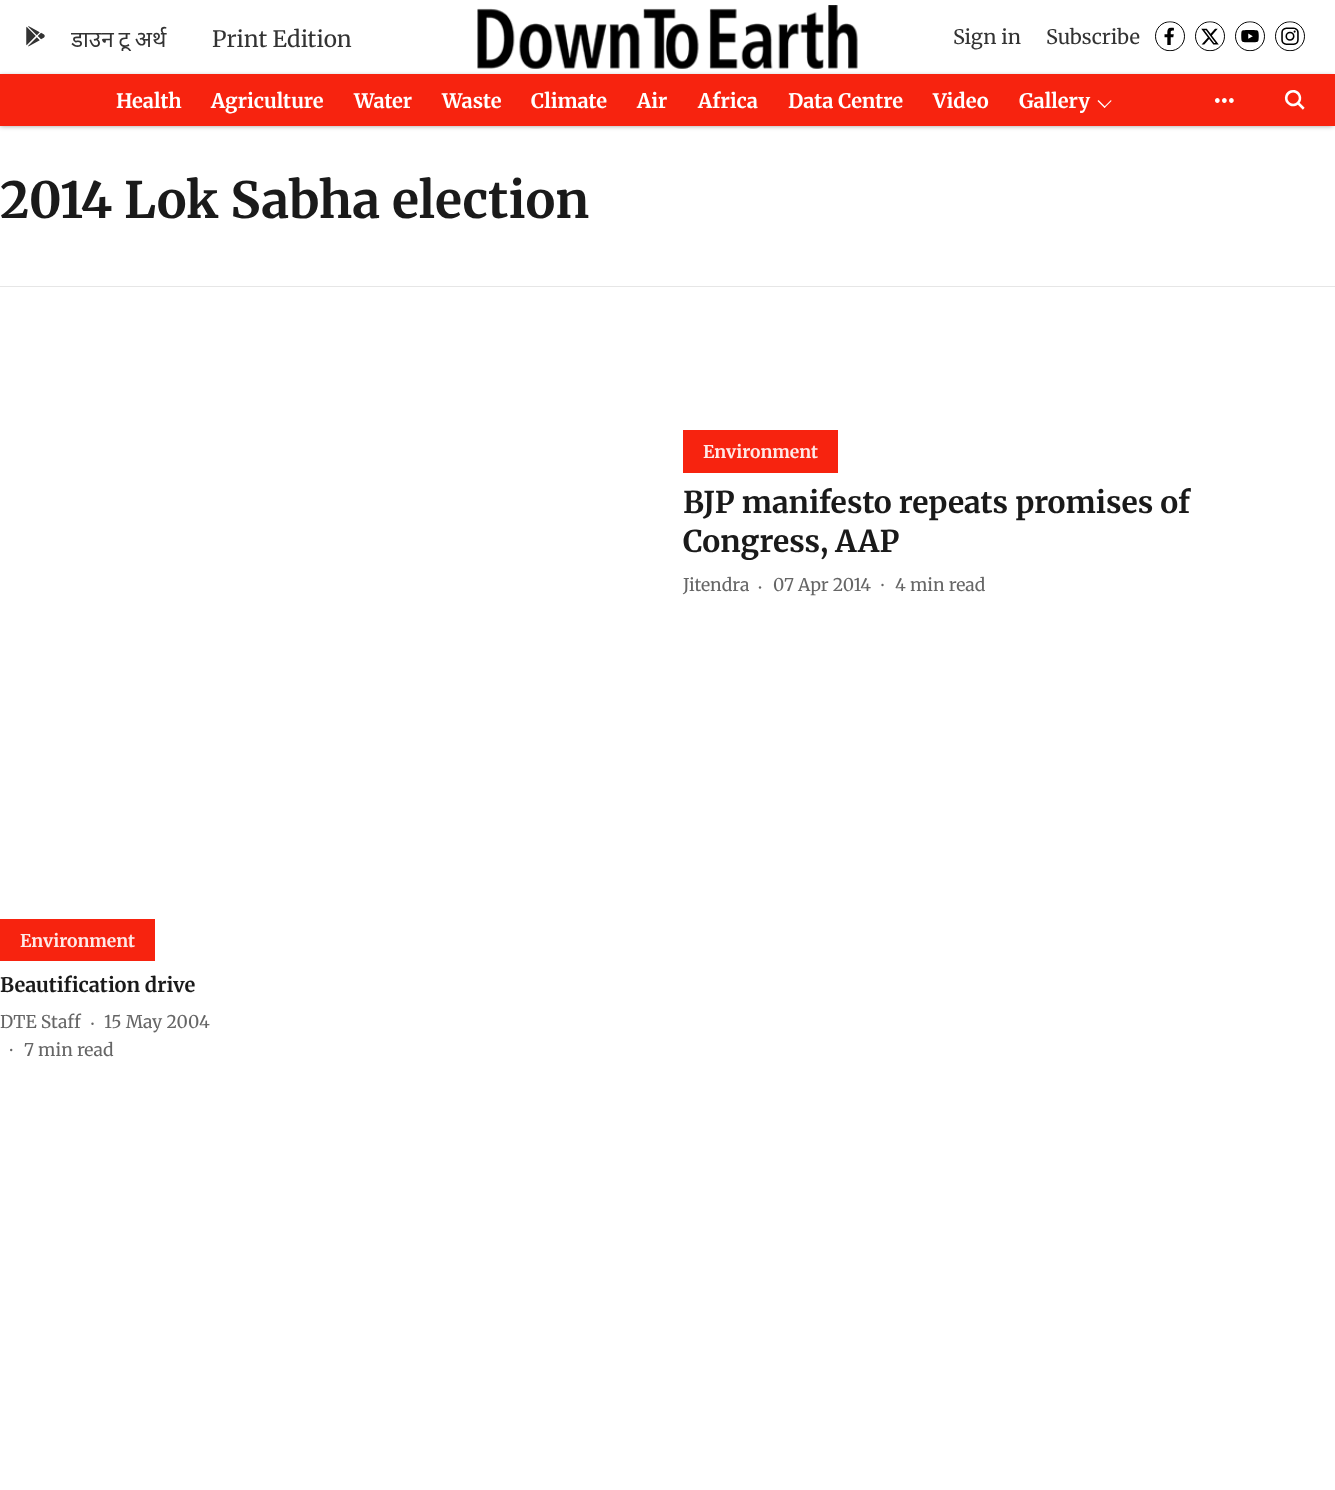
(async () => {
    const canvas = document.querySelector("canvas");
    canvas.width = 1335;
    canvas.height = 1490;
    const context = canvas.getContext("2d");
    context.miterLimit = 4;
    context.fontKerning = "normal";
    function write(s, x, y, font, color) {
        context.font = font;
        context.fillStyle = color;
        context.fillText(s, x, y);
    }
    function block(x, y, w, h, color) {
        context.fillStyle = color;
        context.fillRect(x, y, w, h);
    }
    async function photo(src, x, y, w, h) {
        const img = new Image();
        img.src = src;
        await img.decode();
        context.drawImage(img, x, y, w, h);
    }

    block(0, 0, 1335, 1490, "rgb(255, 255, 255)");
    await photo("media/1.png", 26, 26, 19, 21);
    context.save();
    context.beginPath();
    context.rect(71, 21, 387, 30);
    context.clip();
    context.wordSpacing = "-1px";
    write("डाउन टू अर्थ", 71, 47, "22.5px Noto Sans", "rgb(51, 51, 51)");
    context.restore();
    write("Print Edition", 212, 47, "300 22.5px Merriweather", "rgb(51, 51, 51)");
    await photo("media/2.png", 477, 5, 381, 64);
    write("Sign in", 953, 44, "300 20px Merriweather", "rgb(51, 51, 51)");
    write("Subscribe", 1046, 44, "300 20px Merriweather", "rgb(51, 51, 51)");
    await photo("media/3.png", 1155, 21, 30, 31);
    await photo("media/4.png", 1195, 21, 30, 31);
    await photo("media/5.png", 1235, 21, 30, 31);
    await photo("media/6.png", 1275, 21, 30, 31);
    context.fillStyle = "rgba(0, 0, 0, 0.39)";
    context.filter = "blur(2.5px)";
    context.beginPath();
    context.rect(0, 76, 1333, 50);
    context.fill();
    context.filter = "none";
    block(0, 74, 1335, 52, "rgb(247, 35, 15)");
    write("Health", 116, 108, "300 20px 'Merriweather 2'", "rgb(255, 255, 255)");
    write("Agriculture", 211, 108, "300 20px 'Merriweather 2'", "rgb(255, 255, 255)");
    write("Water", 354, 108, "300 20px 'Merriweather 2'", "rgb(255, 255, 255)");
    write("Waste", 442, 108, "300 20px 'Merriweather 2'", "rgb(255, 255, 255)");
    write("Climate", 531, 108, "300 20px 'Merriweather 2'", "rgb(255, 255, 255)");
    write("Air", 637, 108, "300 20px 'Merriweather 2'", "rgb(255, 255, 255)");
    write("Africa", 698, 108, "300 20px 'Merriweather 2'", "rgb(255, 255, 255)");
    write("Data Centre", 788, 108, "300 20px 'Merriweather 2'", "rgb(255, 255, 255)");
    write("Video", 933, 108, "300 20px 'Merriweather 2'", "rgb(255, 255, 255)");
    write("Gallery", 1019, 108, "300 20px 'Merriweather 2'", "rgb(255, 255, 255)");
    context.beginPath();
    context.moveTo(1111, 100);
    context.lineTo(1111.5, 101);
    context.lineTo(1104.5, 108);
    context.lineTo(1104, 107);
    context.closePath();
    context.fill();
    context.beginPath();
    context.moveTo(1098.5, 100);
    context.lineTo(1105.5, 107);
    context.lineTo(1104.5, 108);
    context.lineTo(1097.5, 101);
    context.closePath();
    context.fill();
    await photo("media/7.png", 1215, 98, 19, 5);
    await photo("media/8.png", 1284, 90, 21, 20);
    block(0, 286, 1335, 1, "rgb(230, 230, 230)");
    write("2014 Lok Sabha election", 0, 218, "300 50px 'Merriweather 2'", "rgb(26, 26, 26)");
    block(683, 430, 155, 43, "rgb(247, 35, 15)");
    write("Environment", 703, 458, "300 17.5px 'Merriweather 2'", "rgb(254, 233, 231)");
    write("BJP manifesto repeats promises of", 683, 513, "300 30px 'Merriweather 2'", "rgb(26, 26, 26)");
    write("Congress, AAP", 683, 552, "300 30px 'Merriweather 2'", "rgb(26, 26, 26)");
    write("Jitendra", 683, 591, "300 17.5px Merriweather", "rgb(102, 102, 102)");
    context.beginPath();
    context.arc(760, 587.5, 1.2, 0, Math.PI * 2);
    context.fill();
    write("07 Apr 2014", 773, 591, "300 17.5px Merriweather", "rgb(102, 102, 102)");
    context.beginPath();
    context.arc(882.5, 585, 1.2, 0, Math.PI * 2);
    context.fill();
    write("4 min read", 895, 591, "300 17.5px Merriweather", "rgb(102, 102, 102)");
    block(0, 919, 155, 42, "rgb(247, 35, 15)");
    write("Environment", 20, 947, "300 17.5px 'Merriweather 2'", "rgb(254, 233, 231)");
    write("Beautification drive", 0, 992, "300 20px 'Merriweather 2'", "rgb(26, 26, 26)");
    write("DTE Staff", 0, 1028, "300 17.5px Merriweather", "rgb(102, 102, 102)");
    context.beginPath();
    context.arc(92.5, 1023.8, 1.2, 0, Math.PI * 2);
    context.fill();
    write("15 May 2004", 104, 1028, "300 17.5px Merriweather", "rgb(102, 102, 102)");
    context.beginPath();
    context.arc(11.2, 1050, 1.2, 0, Math.PI * 2);
    context.fill();
    write("7 min read", 24, 1056, "300 17.5px Merriweather", "rgb(102, 102, 102)");
})();
